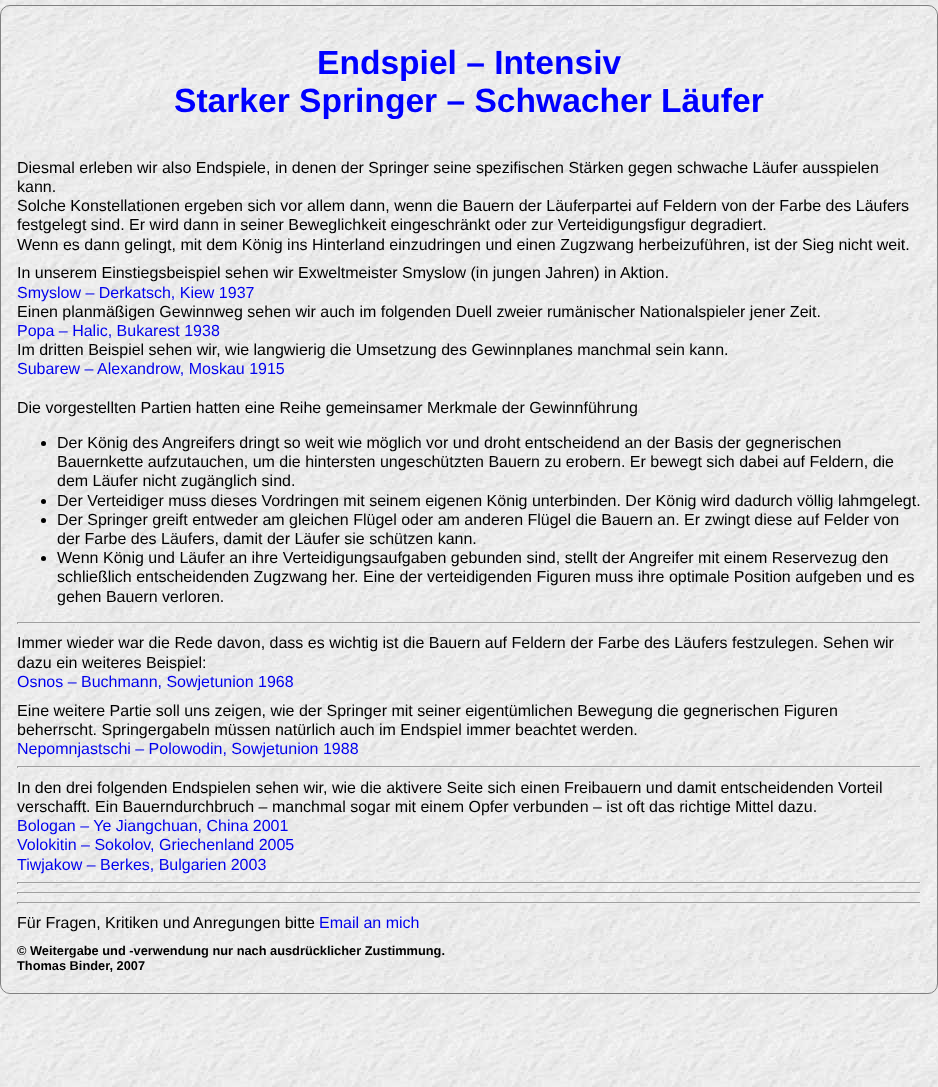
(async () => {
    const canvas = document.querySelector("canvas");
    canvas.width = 938;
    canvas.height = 1087;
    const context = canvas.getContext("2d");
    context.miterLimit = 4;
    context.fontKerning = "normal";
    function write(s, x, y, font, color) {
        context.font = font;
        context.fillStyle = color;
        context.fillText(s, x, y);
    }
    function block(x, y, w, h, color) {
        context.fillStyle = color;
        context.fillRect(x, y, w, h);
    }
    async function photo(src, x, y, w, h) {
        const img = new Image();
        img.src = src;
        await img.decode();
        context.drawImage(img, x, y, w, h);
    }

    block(0, 0, 938, 1087, "rgb(255, 255, 255)");
    await photo("media/1.png", 0, 0, 938, 1087);
    context.beginPath();
    context.roundRect(0.5, 5.5, 937, 988, 9.5);
    context.strokeStyle = "rgb(128, 128, 128)";
    context.stroke();
    write("Endspiel – Intensiv", 317, 74, "bold 33.6px Liberation Sans", "rgb(0, 0, 255)");
    write("Starker Springer – Schwacher Läufer", 174, 112, "bold 33.6px Liberation Sans", "rgb(0, 0, 255)");
    write("Diesmal erleben wir also Endspiele, in denen der Springer seine spezifischen Stärken gegen schwache Läufer ausspielen", 17, 173, "16px Liberation Sans", "rgb(0, 0, 0)");
    write("kann.", 17, 192, "16px Liberation Sans", "rgb(0, 0, 0)");
    write("Solche Konstellationen ergeben sich vor allem dann, wenn die Bauern der Läuferpartei auf Feldern von der Farbe des Läufers", 17, 211, "16px Liberation Sans", "rgb(0, 0, 0)");
    write("festgelegt sind. Er wird dann in seiner Beweglichkeit eingeschränkt oder zur Verteidigungsfigur degradiert.", 17, 230, "16px Liberation Sans", "rgb(0, 0, 0)");
    write("Wenn es dann gelingt, mit dem König ins Hinterland einzudringen und einen Zugzwang herbeizuführen, ist der Sieg nicht weit.", 17, 250, "16px Liberation Sans", "rgb(0, 0, 0)");
    write("In unserem Einstiegsbeispiel sehen wir Exweltmeister Smyslow (in jungen Jahren) in Aktion.", 17, 278, "16px Liberation Sans", "rgb(0, 0, 0)");
    write("Smyslow – Derkatsch, Kiew 1937", 17, 298, "16px Liberation Sans", "rgb(0, 0, 238)");
    write("Einen planmäßigen Gewinnweg sehen wir auch im folgenden Duell zweier rumänischer Nationalspieler jener Zeit.", 17, 317, "16px Liberation Sans", "rgb(0, 0, 0)");
    write("Popa – Halic, Bukarest 1938", 17, 336, "16px Liberation Sans", "rgb(0, 0, 238)");
    write("Im dritten Beispiel sehen wir, wie langwierig die Umsetzung des Gewinnplanes manchmal sein kann.", 17, 355, "16px Liberation Sans", "rgb(0, 0, 0)");
    write("Subarew – Alexandrow, Moskau 1915", 17, 374, "16px Liberation Sans", "rgb(0, 0, 238)");
    write("Die vorgestellten Partien hatten eine Reihe gemeinsamer Merkmale der Gewinnführung", 17, 413, "16px Liberation Sans", "rgb(0, 0, 0)");
    context.beginPath();
    context.arc(43.5, 443.5, 2.5, 0, Math.PI * 2);
    context.fill();
    write("Der König des Angreifers dringt so weit wie möglich vor und droht entscheidend an der Basis der gegnerischen", 57, 448, "16px Liberation Sans", "rgb(0, 0, 0)");
    write("Bauernkette aufzutauchen, um die hintersten ungeschützten Bauern zu erobern. Er bewegt sich dabei auf Feldern, die", 57, 467, "16px Liberation Sans", "rgb(0, 0, 0)");
    write("dem Läufer nicht zugänglich sind.", 57, 486, "16px Liberation Sans", "rgb(0, 0, 0)");
    context.beginPath();
    context.arc(43.5, 501.5, 2.5, 0, Math.PI * 2);
    context.fill();
    write("Der Verteidiger muss dieses Vordringen mit seinem eigenen König unterbinden. Der König wird dadurch völlig lahmgelegt.", 57, 506, "16px Liberation Sans", "rgb(0, 0, 0)");
    context.beginPath();
    context.arc(43.5, 520.5, 2.5, 0, Math.PI * 2);
    context.fill();
    write("Der Springer greift entweder am gleichen Flügel oder am anderen Flügel die Bauern an. Er zwingt diese auf Felder von", 57, 525, "16px Liberation Sans", "rgb(0, 0, 0)");
    write("der Farbe des Läufers, damit der Läufer sie schützen kann.", 57, 544, "16px Liberation Sans", "rgb(0, 0, 0)");
    context.beginPath();
    context.arc(43.5, 558.5, 2.5, 0, Math.PI * 2);
    context.fill();
    write("Wenn König und Läufer an ihre Verteidigungsaufgaben gebunden sind, stellt der Angreifer mit einem Reservezug den", 57, 563, "16px Liberation Sans", "rgb(0, 0, 0)");
    write("schließlich entscheidenden Zugzwang her. Eine der verteidigenden Figuren muss ihre optimale Position aufgeben und es", 57, 582, "16px Liberation Sans", "rgb(0, 0, 0)");
    write("gehen Bauern verloren.", 57, 602, "16px Liberation Sans", "rgb(0, 0, 0)");
    block(17, 622, 904, 1, "rgb(159, 159, 159)");
    block(920, 622, 1, 2, "rgb(238, 238, 238)");
    block(17, 623, 904, 1, "rgb(238, 238, 238)");
    block(17, 622, 1, 2, "rgb(159, 159, 159)");
    write("Immer wieder war die Rede davon, dass es wichtig ist die Bauern auf Feldern der Farbe des Läufers festzulegen. Sehen wir", 17, 648, "16px Liberation Sans", "rgb(0, 0, 0)");
    write("dazu ein weiteres Beispiel:", 17, 668, "16px Liberation Sans", "rgb(0, 0, 0)");
    write("Osnos – Buchmann, Sowjetunion 1968", 17, 687, "16px Liberation Sans", "rgb(0, 0, 238)");
    write("Eine weitere Partie soll uns zeigen, wie der Springer mit seiner eigentümlichen Bewegung die gegnerischen Figuren", 17, 716, "16px Liberation Sans", "rgb(0, 0, 0)");
    write("beherrscht. Springergabeln müssen natürlich auch im Endspiel immer beachtet werden.", 17, 735, "16px Liberation Sans", "rgb(0, 0, 0)");
    write("Nepomnjastschi – Polowodin, Sowjetunion 1988", 17, 754, "16px Liberation Sans", "rgb(0, 0, 238)");
    block(17, 766, 904, 1, "rgb(159, 159, 159)");
    block(920, 766, 1, 2, "rgb(238, 238, 238)");
    block(17, 767, 904, 1, "rgb(238, 238, 238)");
    block(17, 766, 1, 2, "rgb(159, 159, 159)");
    write("In den drei folgenden Endspielen sehen wir, wie die aktivere Seite sich einen Freibauern und damit entscheidenden Vorteil", 17, 793, "16px Liberation Sans", "rgb(0, 0, 0)");
    write("verschafft. Ein Bauerndurchbruch – manchmal sogar mit einem Opfer verbunden – ist oft das richtige Mittel dazu.", 17, 812, "16px Liberation Sans", "rgb(0, 0, 0)");
    write("Bologan – Ye Jiangchuan, China 2001", 17, 831, "16px Liberation Sans", "rgb(0, 0, 238)");
    write("Volokitin – Sokolov, Griechenland 2005", 17, 850, "16px Liberation Sans", "rgb(0, 0, 238)");
    write("Tiwjakow – Berkes, Bulgarien 2003", 17, 870, "16px Liberation Sans", "rgb(0, 0, 238)");
    block(17, 882, 904, 1, "rgb(159, 159, 159)");
    block(920, 882, 1, 2, "rgb(238, 238, 238)");
    block(27, 883, 894, 1, "rgb(238, 238, 238)");
    block(17, 882, 1, 2, "rgb(159, 159, 159)");
    block(17, 892, 904, 1, "rgb(159, 159, 159)");
    block(920, 892, 1, 2, "rgb(238, 238, 238)");
    block(17, 893, 904, 1, "rgb(238, 238, 238)");
    block(17, 892, 1, 2, "rgb(159, 159, 159)");
    block(17, 902, 904, 1, "rgb(159, 159, 159)");
    block(920, 902, 1, 2, "rgb(238, 238, 238)");
    block(17, 903, 904, 1, "rgb(238, 238, 238)");
    block(17, 902, 1, 2, "rgb(159, 159, 159)");
    write("Für Fragen, Kritiken und Anregungen bitte", 17, 928, "16px Liberation Sans", "rgb(0, 0, 0)");
    write("Email an mich", 319, 928, "16px Liberation Sans", "rgb(0, 0, 238)");
    write("© Weitergabe und -verwendung nur nach ausdrücklicher Zustimmung.", 17, 955, "bold 12.8px Liberation Sans", "rgb(0, 0, 0)");
    write("Thomas Binder, 2007", 17, 970, "bold 12.8px Liberation Sans", "rgb(0, 0, 0)");
})();
